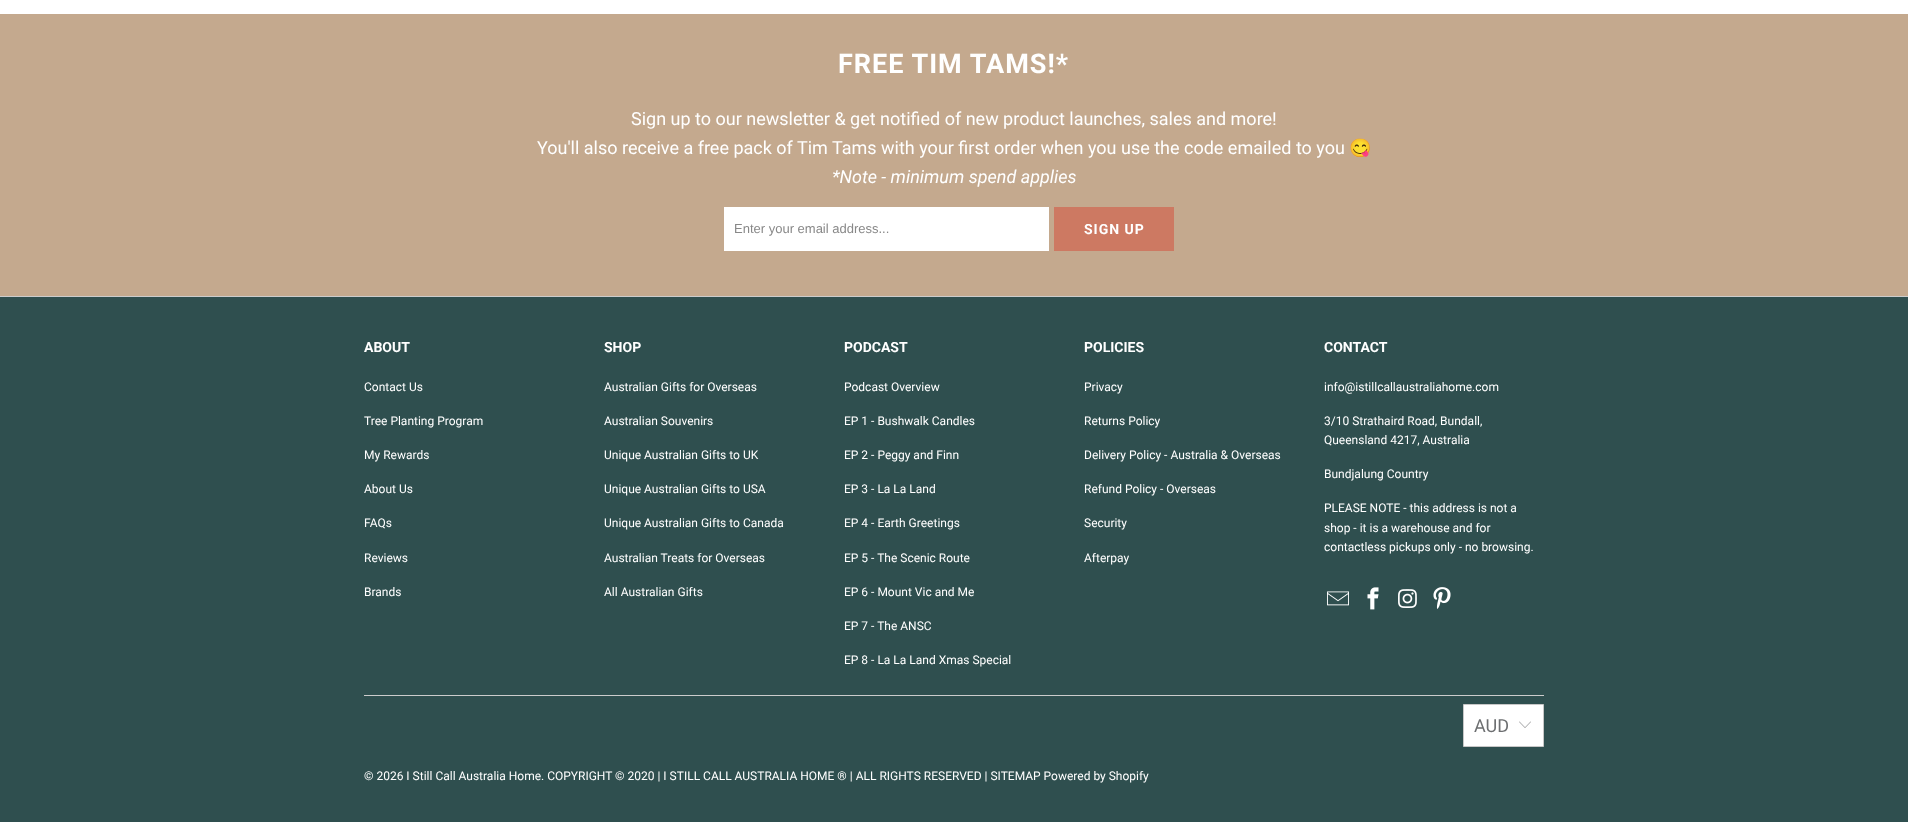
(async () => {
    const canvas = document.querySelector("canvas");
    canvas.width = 1908;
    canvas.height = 822;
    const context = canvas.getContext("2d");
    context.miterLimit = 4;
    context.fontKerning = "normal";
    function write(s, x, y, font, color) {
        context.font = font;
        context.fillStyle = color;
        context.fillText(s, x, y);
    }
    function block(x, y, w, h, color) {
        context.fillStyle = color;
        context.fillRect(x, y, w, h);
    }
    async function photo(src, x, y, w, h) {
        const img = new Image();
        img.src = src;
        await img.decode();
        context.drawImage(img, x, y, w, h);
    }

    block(0, 0, 1908, 822, "rgb(255, 255, 255)");
    block(0, 14, 1908, 282, "rgb(196, 169, 142)");
    context.letterSpacing = "1px";
    write("FREE TIM TAMS!*", 838, 73, "bold 27px Roboto", "rgb(255, 255, 255)");
    context.letterSpacing = "0px";
    write("Sign up to our newsletter & get notified of new product launches, sales and more!", 631, 125, "18px Roboto", "rgb(255, 255, 255)");
    write("You'll also receive a free pack of Tim Tams with your first order when you use the code emailed to you", 537, 154, "18px Roboto", "rgb(255, 255, 255)");
    write("😋", 1349, 154, "18px Noto Color Emoji", "rgb(255, 255, 255)");
    write("*Note - minimum spend applies", 832, 183, "italic 18px Roboto", "rgb(255, 255, 255)");
    block(724, 207, 325, 44, "rgb(255, 255, 255)");
    write("Enter your email address...", 734, 233, "13px Liberation Sans", "rgb(136, 136, 136)");
    block(1054, 207, 120, 44, "rgb(205, 121, 98)");
    context.letterSpacing = "1px";
    write("SIGN UP", 1084, 234, "bold 14px Roboto", "rgb(255, 255, 255)");
    block(0, 297, 1908, 525, "rgb(47, 79, 79)");
    block(0, 296, 1908, 1, "rgb(204, 204, 204)");
    context.letterSpacing = "0px";
    write("ABOUT", 364, 352, "bold 14px Roboto", "rgb(255, 255, 255)");
    write("Contact Us", 364, 391, "12px Roboto", "rgb(255, 255, 255)");
    write("Tree Planting Program", 364, 425, "12px Roboto", "rgb(255, 255, 255)");
    write("My Rewards", 364, 459, "12px Roboto", "rgb(255, 255, 255)");
    write("About Us", 364, 493, "12px Roboto", "rgb(255, 255, 255)");
    write("FAQs", 364, 527, "12px Roboto", "rgb(255, 255, 255)");
    write("Reviews", 364, 562, "12px Roboto", "rgb(255, 255, 255)");
    write("Brands", 364, 596, "12px Roboto", "rgb(255, 255, 255)");
    write("SHOP", 604, 352, "bold 14px Roboto", "rgb(255, 255, 255)");
    write("Australian Gifts for Overseas", 604, 391, "12px Roboto", "rgb(255, 255, 255)");
    write("Australian Souvenirs", 604, 425, "12px Roboto", "rgb(255, 255, 255)");
    write("Unique Australian Gifts to UK", 604, 459, "12px Roboto", "rgb(255, 255, 255)");
    write("Unique Australian Gifts to USA", 604, 493, "12px Roboto", "rgb(255, 255, 255)");
    write("Unique Australian Gifts to Canada", 604, 527, "12px Roboto", "rgb(255, 255, 255)");
    write("Australian Treats for Overseas", 604, 562, "12px Roboto", "rgb(255, 255, 255)");
    write("All Australian Gifts", 604, 596, "12px Roboto", "rgb(255, 255, 255)");
    write("PODCAST", 844, 352, "bold 14px Roboto", "rgb(255, 255, 255)");
    write("Podcast Overview", 844, 391, "12px Roboto", "rgb(255, 255, 255)");
    write("EP 1 - Bushwalk Candles", 844, 425, "12px Roboto", "rgb(255, 255, 255)");
    write("EP 2 - Peggy and Finn", 844, 459, "12px Roboto", "rgb(255, 255, 255)");
    write("EP 3 - La La Land", 844, 493, "12px Roboto", "rgb(255, 255, 255)");
    write("EP 4 - Earth Greetings", 844, 527, "12px Roboto", "rgb(255, 255, 255)");
    write("EP 5 - The Scenic Route", 844, 562, "12px Roboto", "rgb(255, 255, 255)");
    write("EP 6 - Mount Vic and Me", 844, 596, "12px Roboto", "rgb(255, 255, 255)");
    write("EP 7 - The ANSC", 844, 630, "12px Roboto", "rgb(255, 255, 255)");
    write("EP 8 - La La Land Xmas Special", 844, 664, "12px Roboto", "rgb(255, 255, 255)");
    write("POLICIES", 1084, 352, "bold 14px Roboto", "rgb(255, 255, 255)");
    write("Privacy", 1084, 391, "12px Roboto", "rgb(255, 255, 255)");
    write("Returns Policy", 1084, 425, "12px Roboto", "rgb(255, 255, 255)");
    write("Delivery Policy - Australia & Overseas", 1084, 459, "12px Roboto", "rgb(255, 255, 255)");
    write("Refund Policy - Overseas", 1084, 493, "12px Roboto", "rgb(255, 255, 255)");
    write("Security", 1084, 527, "12px Roboto", "rgb(255, 255, 255)");
    write("Afterpay", 1084, 562, "12px Roboto", "rgb(255, 255, 255)");
    write("CONTACT", 1324, 352, "bold 14px Roboto", "rgb(255, 255, 255)");
    write("info@istillcallaustraliahome.com", 1324, 391, "12px Roboto", "rgb(255, 255, 255)");
    write("3/10 Strathaird Road, Bundall,", 1324, 425, "12px Roboto", "rgb(255, 255, 255)");
    write("Queensland 4217, Australia", 1324, 444, "12px Roboto", "rgb(255, 255, 255)");
    write("Bundjalung Country", 1324, 478, "12px Roboto", "rgb(255, 255, 255)");
    write("PLEASE NOTE - this address is not a", 1324, 512, "12px Roboto", "rgb(255, 255, 255)");
    write("shop - it is a warehouse and for", 1324, 532, "12px Roboto", "rgb(255, 255, 255)");
    write("contactless pickups only - no browsing.", 1324, 551, "12px Roboto", "rgb(255, 255, 255)");
    await photo("media/1.png", 1327, 591, 22, 15);
    await photo("media/2.png", 1367, 587, 12, 23);
    await photo("media/3.png", 1398, 589, 19, 19);
    await photo("media/4.png", 1433, 587, 18, 22);
    block(364, 695, 1180, 1, "rgb(204, 204, 204)");
    context.fillStyle = "rgb(255, 255, 255)";
    context.beginPath();
    context.rect(1463.5, 704.5, 80, 42);
    context.fill();
    context.strokeStyle = "rgb(199, 199, 199)";
    context.stroke();
    write("AUD", 1474, 732, "18px Roboto", "rgb(109, 111, 113)");
    await photo("media/5.png", 1519, 721, 12, 7);
    write("© 2026 I Still Call Australia Home", 364, 780, "12px Roboto", "rgb(255, 255, 255)");
    write(". COPYRIGHT © 2020 | I STILL CALL AUSTRALIA HOME ® | ALL RIGHTS RESERVED | SITEMAP Powered by Shopify", 541, 780, "12px Roboto", "rgb(255, 255, 255)");
})();
